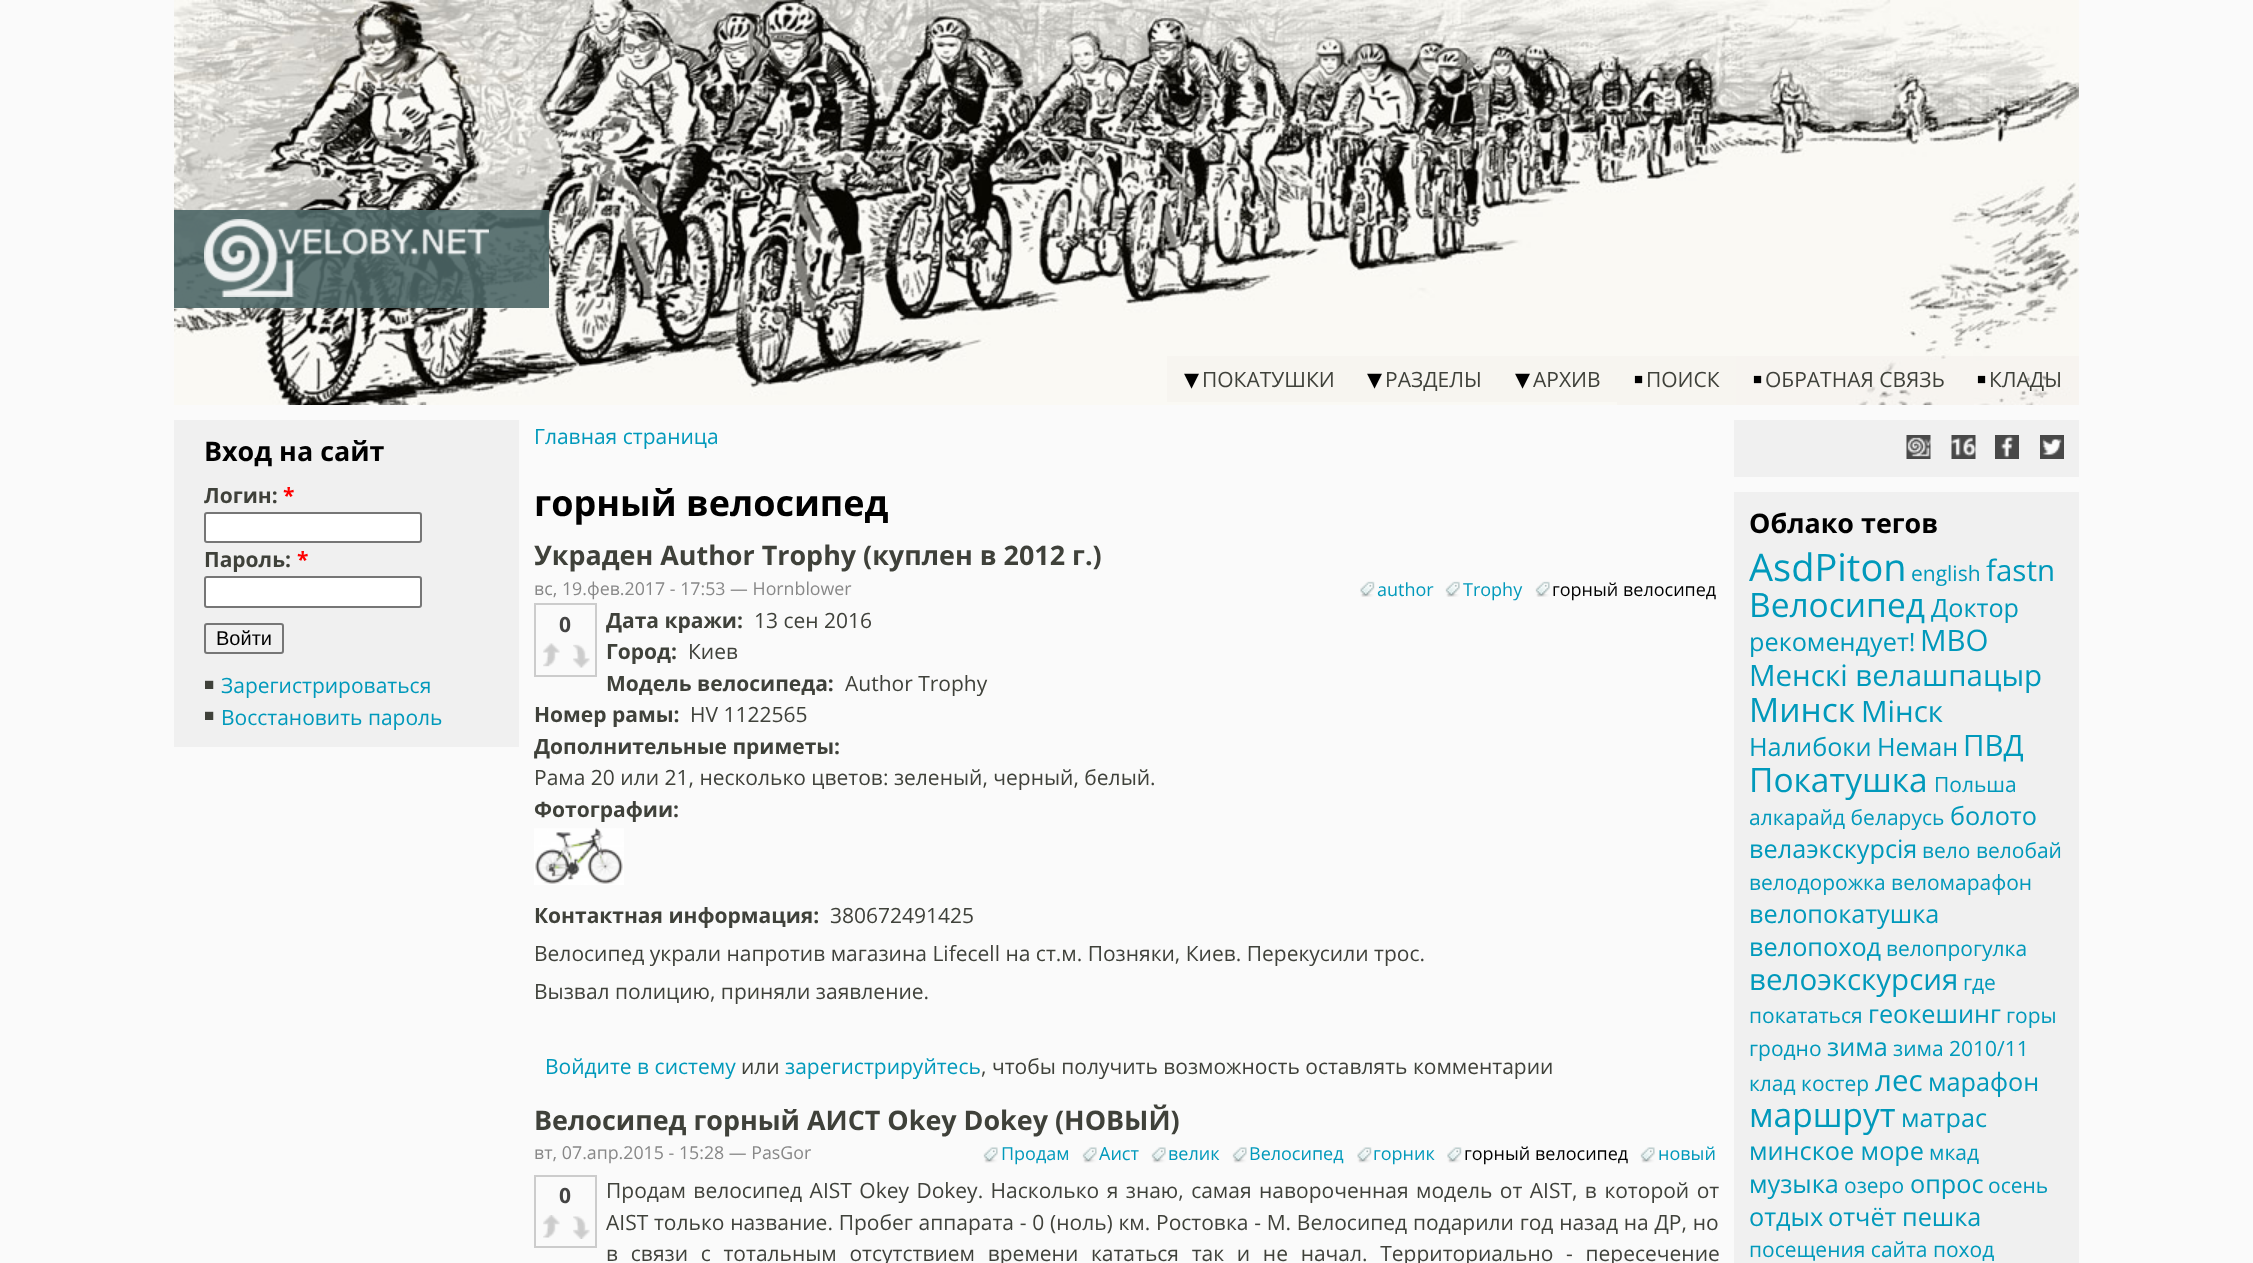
(async () => {
    const canvas = document.querySelector("canvas");
    canvas.width = 2253;
    canvas.height = 1263;
    const context = canvas.getContext("2d");
    context.miterLimit = 4;
    context.fontKerning = "normal";
    function write(s, x, y, font, color) {
        context.font = font;
        context.fillStyle = color;
        context.fillText(s, x, y);
    }
    function block(x, y, w, h, color) {
        context.fillStyle = color;
        context.fillRect(x, y, w, h);
    }
    async function photo(src, x, y, w, h) {
        const img = new Image();
        img.src = src;
        await img.decode();
        context.drawImage(img, x, y, w, h);
    }

    block(0, 0, 2253, 1263, "rgb(250, 250, 250)");
    await photo("media/1.png", 174, 0, 1905, 405);
    block(174, 210, 375, 98, "rgba(76, 102, 102, 0.9)");
    await photo("media/2.png", 204, 219, 285, 78);
    block(1167, 356, 450, 46, "rgb(247, 245, 240)");
    write("▾", 1184, 389, "30px DejaVu Sans", "rgb(0, 0, 0)");
    write("ПОКАТУШКИ", 1202, 387, "21px Open Sans", "rgb(63, 65, 58)");
    write("▾", 1367, 389, "30px DejaVu Sans", "rgb(0, 0, 0)");
    write("РАЗДЕЛЫ", 1385, 387, "21px Open Sans", "rgb(63, 65, 58)");
    write("▾", 1515, 389, "30px DejaVu Sans", "rgb(0, 0, 0)");
    write("АРХИВ", 1533, 387, "21px Open Sans", "rgb(63, 65, 58)");
    block(1617, 356, 119, 49, "rgb(247, 245, 240)");
    write("■", 1634, 384, "15px Liberation Sans", "rgb(0, 0, 0)");
    write("ПОИСК", 1646, 387, "21px Open Sans", "rgb(63, 65, 58)");
    block(1736, 356, 225, 49, "rgba(243, 238, 235, 0.4)");
    write("■", 1753, 384, "15px Liberation Sans", "rgb(0, 0, 0)");
    write("ОБРАТНАЯ СВЯЗЬ", 1765, 387, "21px Open Sans", "rgb(63, 65, 58)");
    block(1961, 356, 118, 49, "rgba(243, 238, 235, 0.4)");
    write("■", 1977, 384, "15px Liberation Sans", "rgb(0, 0, 0)");
    write("КЛАДЫ", 1989, 387, "21px Open Sans", "rgb(63, 65, 58)");
    block(174, 420, 345, 327, "rgb(240, 240, 240)");
    write("Вход на сайт", 204, 461, "bold 26.9px Open Sans", "rgb(0, 0, 0)");
    write("Логин:", 204, 503, "bold 21px Open Sans", "rgb(63, 65, 58)");
    write("*", 283, 503, "bold 21px Open Sans", "rgb(255, 0, 0)");
    context.fillStyle = "rgb(255, 255, 255)";
    context.beginPath();
    context.roundRect(205, 513, 216, 29, 2);
    context.fill();
    context.strokeStyle = "rgb(118, 118, 118)";
    context.lineWidth = 2;
    context.stroke();
    write("Пароль:", 204, 567, "bold 21px Open Sans", "rgb(63, 65, 58)");
    write("*", 297, 567, "bold 21px Open Sans", "rgb(255, 0, 0)");
    context.fillStyle = "rgb(255, 255, 255)";
    context.beginPath();
    context.roundRect(205, 577, 216, 30, 2);
    context.fill();
    context.stroke();
    context.beginPath();
    context.roundRect(205, 624, 78, 29, 2);
    context.stroke();
    write("Войти", 216, 645, "20px Liberation Sans", "rgb(0, 0, 0)");
    write("■", 204, 690, "17px Liberation Sans", "rgb(63, 65, 58)");
    write("Зарегистрироваться", 221, 693, "21px Open Sans", "rgb(0, 153, 187)");
    write("■", 204, 721, "17px Liberation Sans", "rgb(63, 65, 58)");
    write("Восстановить пароль", 221, 725, "21px Open Sans", "rgb(0, 153, 187)");
    write("Главная страница", 534, 444, "21px Open Sans", "rgb(0, 153, 187)");
    write("горный велосипед", 534, 516, "bold 36px Open Sans", "rgb(0, 0, 0)");
    write("Украден Author Trophy (куплен в 2012 г.)", 534, 565, "bold 26.9px Open Sans", "rgb(63, 65, 58)");
    write("вс, 19.фев.2017 - 17:53 — Hornblower", 534, 595, "17.8px Open Sans", "rgb(136, 136, 136)");
    await photo("media/3.png", 1360, 581, 15, 16);
    write("author", 1377, 596, "18px Open Sans", "rgb(0, 153, 187)");
    await photo("media/4.png", 1445, 581, 15, 16);
    write("Trophy", 1463, 596, "18px Open Sans", "rgb(0, 153, 187)");
    await photo("media/5.png", 1535, 581, 15, 16);
    write("горный велосипед", 1552, 596, "18px Open Sans", "rgb(0, 0, 0)");
    context.strokeStyle = "rgb(204, 204, 204)";
    context.strokeRect(535, 604, 61, 72);
    write("0", 559, 632, "bold 21px Open Sans", "rgb(68, 68, 68)");
    await photo("media/6.png", 543, 643, 17, 24);
    await photo("media/7.png", 573, 644, 17, 24);
    write("Дата кражи:", 606, 628, "bold 21px Open Sans", "rgb(63, 65, 58)");
    write("13 сен 2016", 754, 628, "21px Open Sans", "rgb(63, 65, 58)");
    write("Город:", 606, 659, "bold 21px Open Sans", "rgb(63, 65, 58)");
    write("Киев", 688, 659, "21px Open Sans", "rgb(63, 65, 58)");
    write("Модель велосипеда:", 606, 691, "bold 21px Open Sans", "rgb(63, 65, 58)");
    write("Author Trophy", 845, 691, "21px Open Sans", "rgb(63, 65, 58)");
    write("Номер рамы:", 534, 722, "bold 21px Open Sans", "rgb(63, 65, 58)");
    write("HV 1122565", 690, 722, "21px Open Sans", "rgb(63, 65, 58)");
    write("Дополнительные приметы:", 534, 754, "bold 21px Open Sans", "rgb(63, 65, 58)");
    write("Рама 20 или 21, несколько цветов: зеленый, черный, белый.", 534, 785, "21px Open Sans", "rgb(63, 65, 58)");
    write("Фотографии:", 534, 817, "bold 21px Open Sans", "rgb(63, 65, 58)");
    await photo("media/8.png", 534, 827, 90, 58);
    write("Контактная информация:", 534, 923, "bold 21px Open Sans", "rgb(63, 65, 58)");
    write("380672491425", 830, 923, "21px Open Sans", "rgb(63, 65, 58)");
    write("Велосипед украли напротив магазина Lifecell на ст.м. Позняки, Киев. Перекусили трос.", 534, 961, "21px Open Sans", "rgb(63, 65, 58)");
    write("Вызвал полицию, приняли заявление.", 534, 999, "21px Open Sans", "rgb(63, 65, 58)");
    write("Войдите в систему", 545, 1074, "21px Open Sans", "rgb(0, 153, 187)");
    write("или", 741, 1074, "21px Open Sans", "rgb(63, 65, 58)");
    write("зарегистрируйтесь", 785, 1074, "21px Open Sans", "rgb(0, 153, 187)");
    write(", чтобы получить возможность оставлять комментарии", 981, 1074, "21px Open Sans", "rgb(63, 65, 58)");
    write("Велосипед горный АИСТ Okey Dokey (НОВЫЙ)", 534, 1130, "bold 26.9px Open Sans", "rgb(63, 65, 58)");
    write("вт, 07.апр.2015 - 15:28 — PasGor", 534, 1159, "17.8px Open Sans", "rgb(136, 136, 136)");
    await photo("media/9.png", 983, 1147, 15, 16);
    write("Продам", 1001, 1160, "18px Open Sans", "rgb(0, 153, 187)");
    await photo("media/9.png", 1082, 1147, 15, 16);
    write("Аист", 1099, 1160, "18px Open Sans", "rgb(0, 153, 187)");
    await photo("media/10.png", 1151, 1147, 15, 16);
    write("велик", 1168, 1160, "18px Open Sans", "rgb(0, 153, 187)");
    await photo("media/9.png", 1232, 1147, 15, 16);
    write("Велосипед", 1249, 1160, "18px Open Sans", "rgb(0, 153, 187)");
    await photo("media/11.png", 1357, 1147, 15, 16);
    write("горник", 1373, 1160, "18px Open Sans", "rgb(0, 153, 187)");
    await photo("media/12.png", 1447, 1147, 15, 16);
    write("горный велосипед", 1464, 1160, "18px Open Sans", "rgb(0, 0, 0)");
    await photo("media/9.png", 1640, 1147, 15, 16);
    write("новый", 1658, 1160, "18px Open Sans", "rgb(0, 153, 187)");
    context.strokeRect(535, 1176, 61, 71);
    write("0", 559, 1203, "bold 21px Open Sans", "rgb(68, 68, 68)");
    await photo("media/13.png", 543, 1215, 17, 23);
    await photo("media/14.png", 573, 1216, 17, 23);
    context.wordSpacing = "2px";
    write("Продам велосипед AIST Okey Dokey. Насколько я знаю, самая навороченная модель от AIST, в которой от", 606, 1198, "21px Open Sans", "rgb(63, 65, 58)");
    context.wordSpacing = "0.3px";
    write("AIST только название. Пробег аппарата - 0 (ноль) км. Ростовка - M. Велосипед подарили год назад на ДР, но", 606, 1230, "21px Open Sans", "rgb(63, 65, 58)");
    context.wordSpacing = "7.25px";
    write("в связи с тотальным отсутствием времени кататься так и не начал. Территориально - пересечение", 606, 1261, "21px Open Sans", "rgb(63, 65, 58)");
    block(1734, 420, 345, 57, "rgb(240, 240, 240)");
    await photo("media/15.png", 1906, 435, 25, 24);
    await photo("media/16.png", 1951, 435, 25, 24);
    await photo("media/17.png", 1995, 435, 24, 24);
    await photo("media/18.png", 2040, 435, 24, 24);
    block(1734, 492, 345, 771, "rgb(240, 240, 240)");
    context.wordSpacing = "0px";
    write("Облако тегов", 1749, 533, "bold 26.9px Open Sans", "rgb(0, 0, 0)");
    write("AsdPiton", 1749, 581, "38px Open Sans", "rgb(0, 153, 187)");
    write("english", 1911, 581, "21px Open Sans", "rgb(0, 153, 187)");
    write("fastn", 1986, 581, "29.5px Open Sans", "rgb(0, 153, 187)");
    write("Велосипед", 1749, 617, "33.5px Open Sans", "rgb(0, 153, 187)");
    write("Доктор", 1931, 617, "25.25px Open Sans", "rgb(0, 153, 187)");
    write("рекомендует!", 1749, 651, "25.25px Open Sans", "rgb(0, 153, 187)");
    write("МВО", 1920, 651, "29.5px Open Sans", "rgb(0, 153, 187)");
    write("Менскі велашпацыр", 1749, 686, "29.5px Open Sans", "rgb(0, 153, 187)");
    write("Минск", 1749, 722, "33.5px Open Sans", "rgb(0, 153, 187)");
    write("Мінск", 1861, 722, "29.5px Open Sans", "rgb(0, 153, 187)");
    write("Налибоки", 1749, 756, "25.25px Open Sans", "rgb(0, 153, 187)");
    write("Неман", 1877, 756, "25.25px Open Sans", "rgb(0, 153, 187)");
    write("ПВД", 1963, 756, "29.5px Open Sans", "rgb(0, 153, 187)");
    write("Покатушка", 1749, 792, "33.5px Open Sans", "rgb(0, 153, 187)");
    write("Польша", 1934, 792, "21px Open Sans", "rgb(0, 153, 187)");
    write("алкарайд беларусь", 1749, 825, "21px Open Sans", "rgb(0, 153, 187)");
    write("болото", 1950, 825, "25.25px Open Sans", "rgb(0, 153, 187)");
    write("велаэкскурсія", 1749, 858, "25.25px Open Sans", "rgb(0, 153, 187)");
    write("вело велобай", 1922, 858, "21px Open Sans", "rgb(0, 153, 187)");
    write("велодорожка веломарафон", 1749, 890, "21px Open Sans", "rgb(0, 153, 187)");
    write("велопокатушка", 1749, 923, "25.25px Open Sans", "rgb(0, 153, 187)");
    write("велопоход", 1749, 956, "25.25px Open Sans", "rgb(0, 153, 187)");
    write("велопрогулка", 1886, 956, "21px Open Sans", "rgb(0, 153, 187)");
    write("велоэкскурсия", 1749, 990, "29.5px Open Sans", "rgb(0, 153, 187)");
    write("где", 1963, 990, "21px Open Sans", "rgb(0, 153, 187)");
    write("покататься", 1749, 1023, "21px Open Sans", "rgb(0, 153, 187)");
    write("геокешинг", 1868, 1023, "25.25px Open Sans", "rgb(0, 153, 187)");
    write("горы", 2006, 1023, "21px Open Sans", "rgb(0, 153, 187)");
    write("гродно", 1749, 1056, "21px Open Sans", "rgb(0, 153, 187)");
    write("зима", 1827, 1056, "25.25px Open Sans", "rgb(0, 153, 187)");
    write("зима 2010/11", 1893, 1056, "21px Open Sans", "rgb(0, 153, 187)");
    write("клад костер", 1749, 1091, "21px Open Sans", "rgb(0, 153, 187)");
    write("лес", 1875, 1091, "29.5px Open Sans", "rgb(0, 153, 187)");
    write("марафон", 1928, 1091, "25.25px Open Sans", "rgb(0, 153, 187)");
    write("маршрут", 1749, 1127, "33.5px Open Sans", "rgb(0, 153, 187)");
    write("матрас", 1901, 1127, "25.25px Open Sans", "rgb(0, 153, 187)");
    write("минское море", 1749, 1160, "25.25px Open Sans", "rgb(0, 153, 187)");
    write("мкад", 1929, 1160, "21px Open Sans", "rgb(0, 153, 187)");
    write("музыка", 1749, 1193, "25.25px Open Sans", "rgb(0, 153, 187)");
    write("озеро", 1844, 1193, "21px Open Sans", "rgb(0, 153, 187)");
    write("опрос", 1910, 1193, "25.25px Open Sans", "rgb(0, 153, 187)");
    write("осень", 1988, 1193, "21px Open Sans", "rgb(0, 153, 187)");
    write("отдых", 1749, 1226, "25.25px Open Sans", "rgb(0, 153, 187)");
    write("отчёт", 1828, 1226, "25.25px Open Sans", "rgb(0, 153, 187)");
    write("пешка", 1902, 1226, "25.25px Open Sans", "rgb(0, 153, 187)");
    write("посещения сайта поход", 1749, 1257, "21px Open Sans", "rgb(0, 153, 187)");
})();
